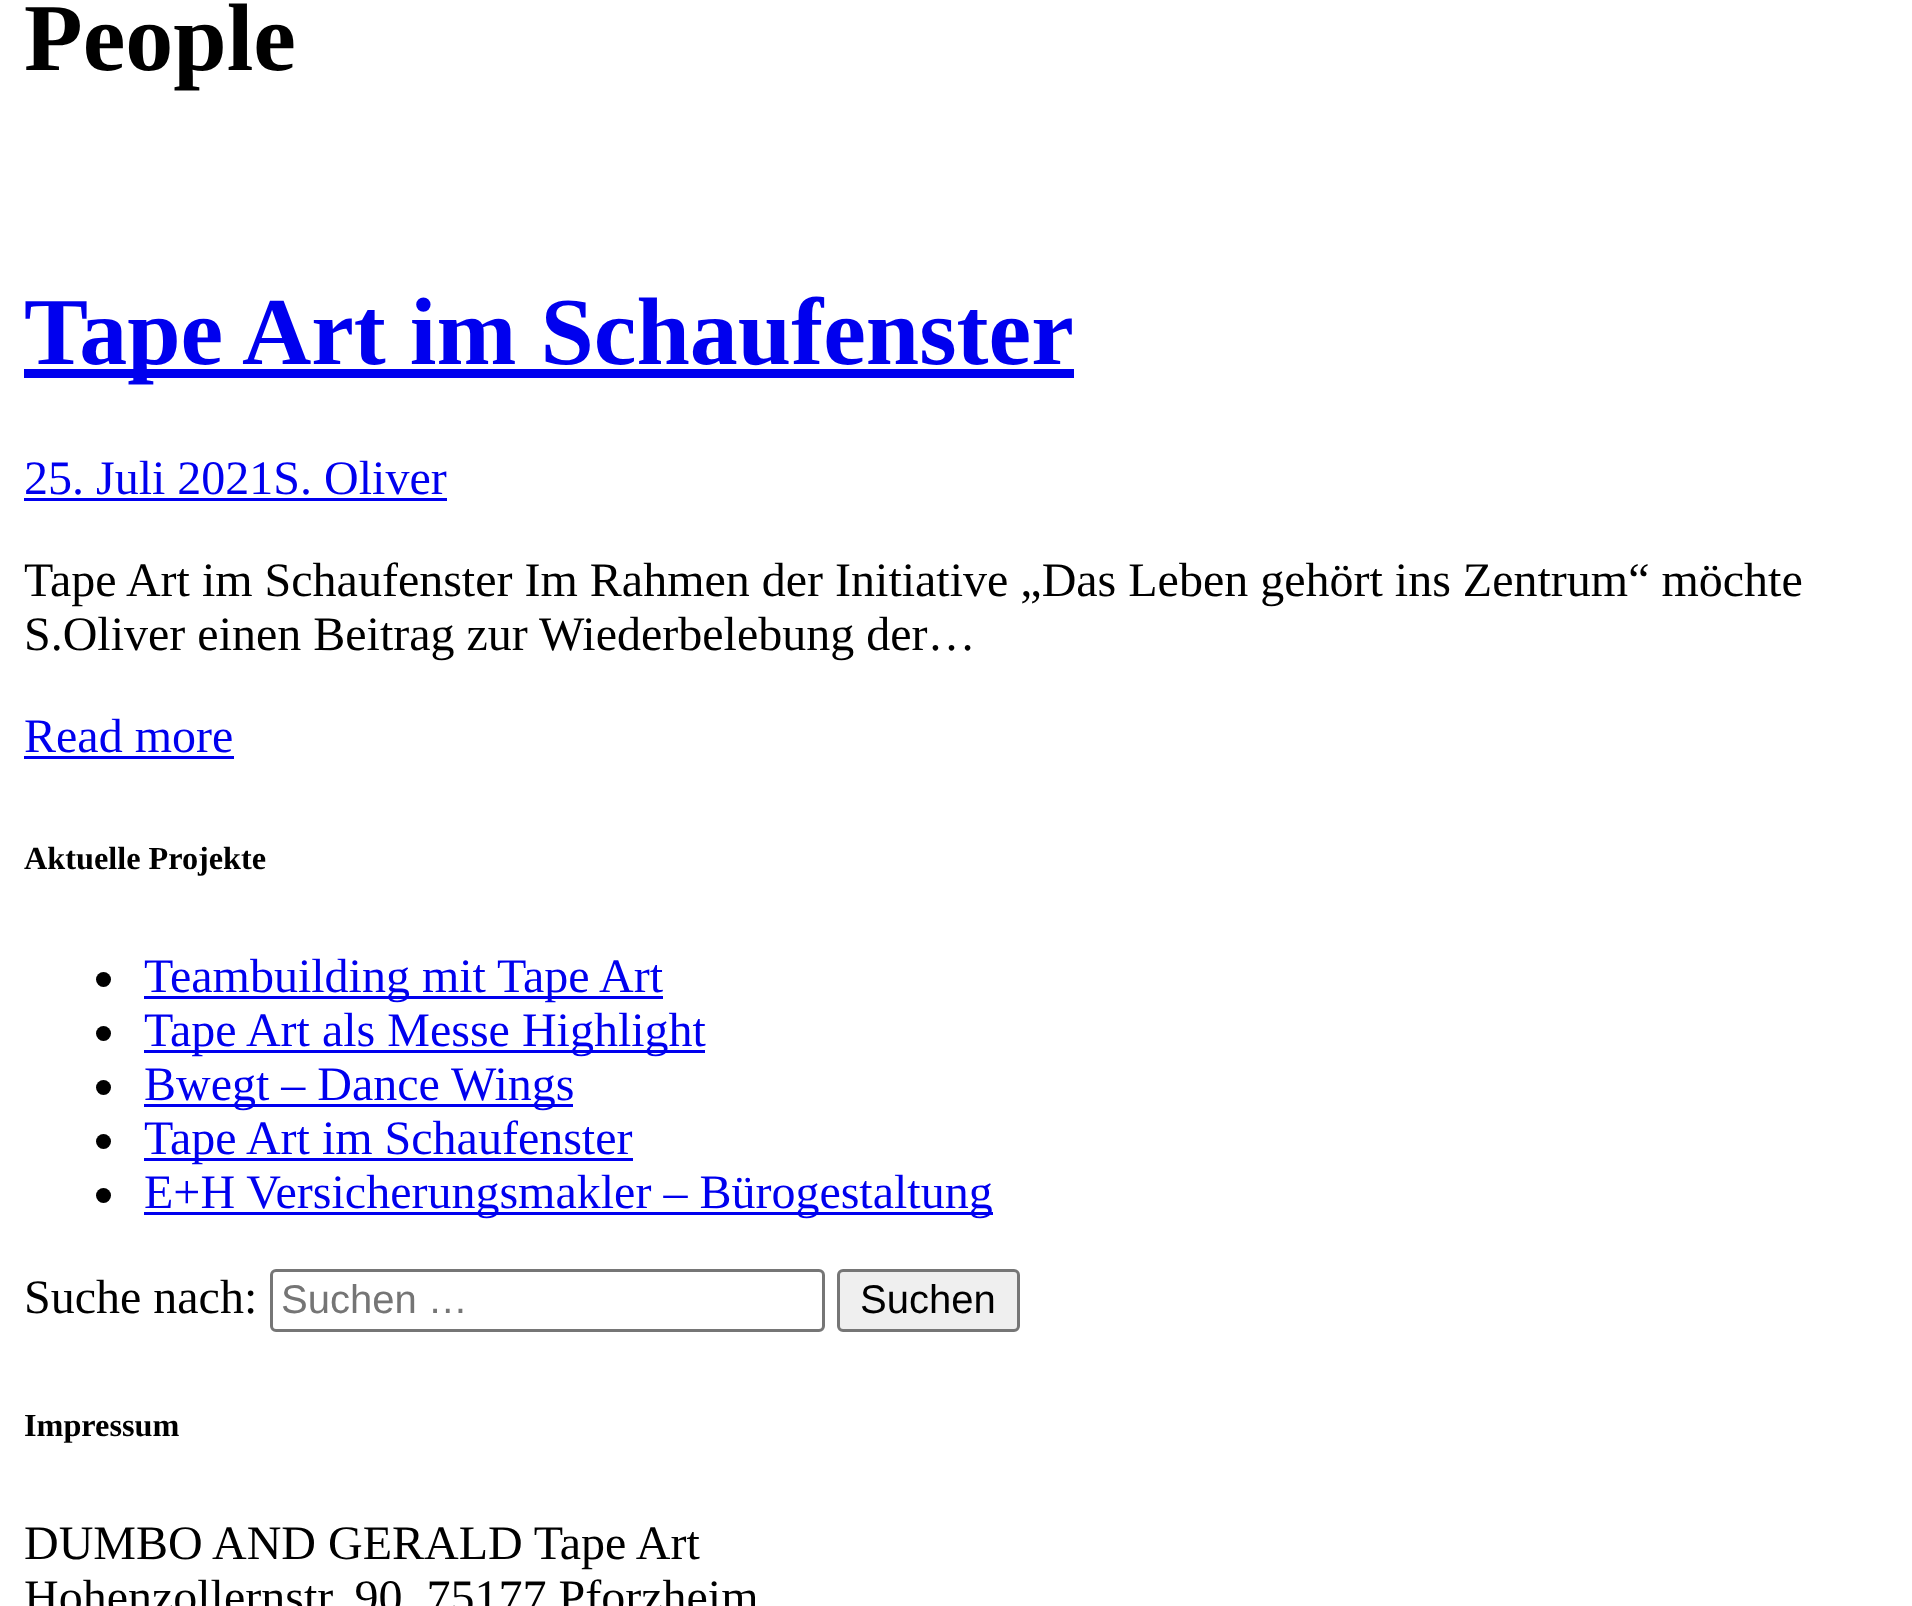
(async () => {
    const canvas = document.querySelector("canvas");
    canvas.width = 1912;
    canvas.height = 1606;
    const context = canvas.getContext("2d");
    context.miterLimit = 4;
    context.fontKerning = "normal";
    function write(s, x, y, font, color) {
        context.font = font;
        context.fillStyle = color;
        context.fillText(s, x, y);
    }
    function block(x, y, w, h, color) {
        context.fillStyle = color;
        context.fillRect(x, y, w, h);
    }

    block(0, 0, 1912, 1606, "rgb(255, 255, 255)");
    write("People", 24, 70, "bold 96px Liberation Serif", "rgb(0, 0, 0)");
    block(24, 369, 1050, 9, "rgb(0, 0, 238)");
    write("Tape Art im Schaufenster", 24, 364, "bold 96px Liberation Serif", "rgb(0, 0, 238)");
    write("25. Juli 2021S. Oliver", 24, 494, "48px Liberation Serif", "rgb(0, 0, 238)");
    block(24, 498, 423, 3, "rgb(0, 0, 238)");
    write("Tape Art im Schaufenster Im Rahmen der Initiative „Das Leben gehört ins Zentrum“ möchte", 24, 596, "48px Liberation Serif", "rgb(0, 0, 0)");
    write("S.Oliver einen Beitrag zur Wiederbelebung der…", 24, 650, "48px Liberation Serif", "rgb(0, 0, 0)");
    write("Read more", 24, 752, "48px Liberation Serif", "rgb(0, 0, 238)");
    block(24, 756, 210, 3, "rgb(0, 0, 238)");
    write("Aktuelle Projekte", 24, 869, "bold 32.25px Liberation Serif", "rgb(0, 0, 0)");
    context.beginPath();
    context.arc(103.5, 979.5, 7.5, 0, Math.PI * 2);
    context.fill();
    block(144, 996, 519, 3, "rgb(0, 0, 238)");
    write("Teambuilding mit Tape Art", 144, 992, "48px Liberation Serif", "rgb(0, 0, 238)");
    context.fillStyle = "rgb(0, 0, 0)";
    context.beginPath();
    context.arc(103.5, 1033.5, 7.5, 0, Math.PI * 2);
    context.fill();
    block(144, 1050, 561, 3, "rgb(0, 0, 238)");
    write("Tape Art als Messe Highlight", 144, 1046, "48px Liberation Serif", "rgb(0, 0, 238)");
    context.fillStyle = "rgb(0, 0, 0)";
    context.beginPath();
    context.arc(103.5, 1087.5, 7.5, 0, Math.PI * 2);
    context.fill();
    block(144, 1104, 429, 3, "rgb(0, 0, 238)");
    write("Bwegt – Dance Wings", 144, 1100, "48px Liberation Serif", "rgb(0, 0, 238)");
    context.fillStyle = "rgb(0, 0, 0)";
    context.beginPath();
    context.arc(103.5, 1141.5, 7.5, 0, Math.PI * 2);
    context.fill();
    block(144, 1158, 489, 3, "rgb(0, 0, 238)");
    write("Tape Art im Schaufenster", 144, 1154, "48px Liberation Serif", "rgb(0, 0, 238)");
    context.fillStyle = "rgb(0, 0, 0)";
    context.beginPath();
    context.arc(103.5, 1195.5, 7.5, 0, Math.PI * 2);
    context.fill();
    block(144, 1212, 849, 3, "rgb(0, 0, 238)");
    write("E+H Versicherungsmakler – Bürogestaltung", 144, 1208, "48px Liberation Serif", "rgb(0, 0, 238)");
    write("Suche nach:", 24, 1313, "48px Liberation Serif", "rgb(0, 0, 0)");
    context.beginPath();
    context.roundRect(271.5, 1270.5, 552, 60, 4.5);
    context.strokeStyle = "rgb(118, 118, 118)";
    context.lineWidth = 3;
    context.stroke();
    write("Suchen …", 281, 1313, "40px Liberation Sans", "rgb(117, 117, 117)");
    context.fillStyle = "rgb(239, 239, 239)";
    context.beginPath();
    context.roundRect(838.5, 1270.5, 180, 60, 4.5);
    context.fill();
    context.stroke();
    write("Suchen", 860, 1313, "40px Liberation Sans", "rgb(0, 0, 0)");
    write("Impressum", 24, 1436, "bold 32.25px Liberation Serif", "rgb(0, 0, 0)");
    write("DUMBO AND GERALD Tape Art", 24, 1559, "48px Liberation Serif", "rgb(0, 0, 0)");
    write("Hohenzollernstr. 90, 75177 Pforzheim", 24, 1613, "48px Liberation Serif", "rgb(0, 0, 0)");
})();
